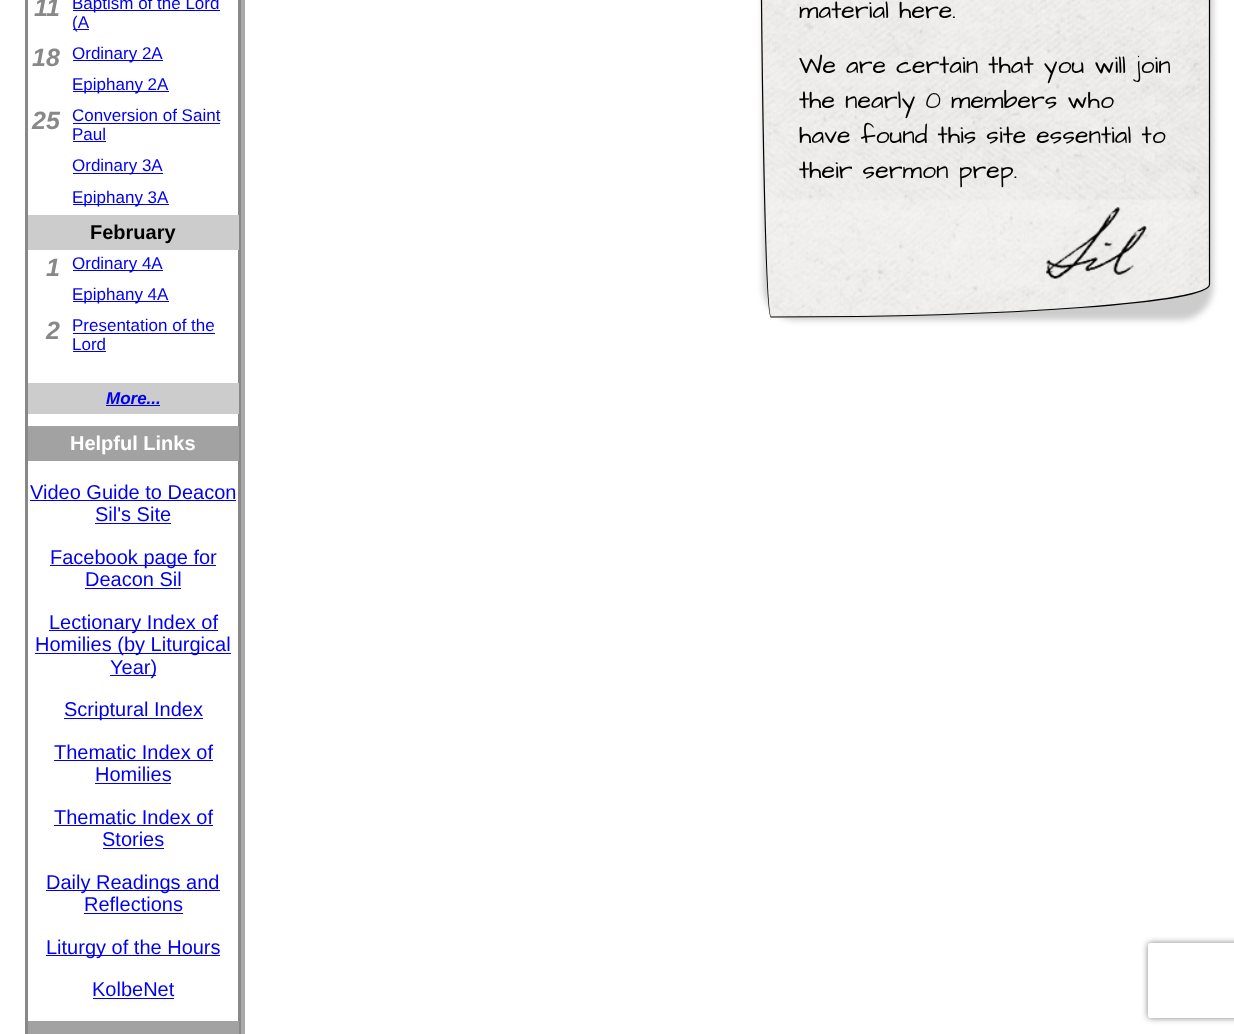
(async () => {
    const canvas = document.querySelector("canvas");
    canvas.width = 1234;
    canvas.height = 1034;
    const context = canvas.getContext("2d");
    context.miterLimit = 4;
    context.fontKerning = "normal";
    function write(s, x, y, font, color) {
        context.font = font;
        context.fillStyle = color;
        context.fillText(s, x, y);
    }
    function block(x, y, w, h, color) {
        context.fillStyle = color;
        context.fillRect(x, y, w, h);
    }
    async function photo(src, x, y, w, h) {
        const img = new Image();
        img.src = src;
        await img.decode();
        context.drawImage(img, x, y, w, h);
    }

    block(0, 0, 1234, 1034, "rgb(255, 255, 255)");
    context.save();
    context.beginPath();
    context.rect(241, 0, 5, 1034);
    context.clip();
    context.fillStyle = "rgb(170, 170, 170)";
    context.filter = "blur(0.5px)";
    context.beginPath();
    context.roundRect(29, -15, 216, 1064, 13);
    context.fill();
    context.filter = "none";
    context.restore();
    context.strokeStyle = "rgb(136, 136, 136)";
    context.lineWidth = 3;
    context.strokeRect(26.5, -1.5, 213, 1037);
    write("11", 34, 16, "italic bold 25px Liberation Sans", "rgb(136, 136, 136)");
    block(73, 10, 147, 1, "rgb(0, 0, 238)");
    write("Baptism of the Lord", 72, 9, "17px Liberation Sans", "rgb(0, 0, 238)");
    block(73, 29, 16, 1, "rgb(0, 0, 238)");
    write("(A", 72, 28, "17px Liberation Sans", "rgb(0, 0, 238)");
    write("18", 32, 66, "italic bold 25px Liberation Sans", "rgb(136, 136, 136)");
    block(73, 60, 90, 1, "rgb(0, 0, 238)");
    write("Ordinary 2A", 72, 59, "17px Liberation Sans", "rgb(0, 0, 238)");
    block(73, 91, 96, 1, "rgb(0, 0, 238)");
    write("Epiphany 2A", 72, 90, "17px Liberation Sans", "rgb(0, 0, 238)");
    write("25", 32, 129, "italic bold 25px Liberation Sans", "rgb(136, 136, 136)");
    write("Conversion of Saint", 72, 121, "17px Liberation Sans", "rgb(0, 0, 238)");
    block(73, 123, 147, 1, "rgb(0, 0, 238)");
    write("Paul", 72, 140, "17px Liberation Sans", "rgb(0, 0, 238)");
    block(73, 141, 33, 1, "rgb(0, 0, 238)");
    block(73, 173, 90, 1, "rgb(0, 0, 238)");
    write("Ordinary 3A", 72, 171, "17px Liberation Sans", "rgb(0, 0, 238)");
    block(73, 204, 96, 1, "rgb(0, 0, 238)");
    write("Epiphany 3A", 72, 203, "17px Liberation Sans", "rgb(0, 0, 238)");
    block(28, 215, 211, 35, "rgb(204, 204, 204)");
    write("February", 90, 239, "bold 20px Liberation Sans", "rgb(0, 0, 0)");
    write("1", 46, 276, "italic bold 25px Liberation Sans", "rgb(136, 136, 136)");
    block(73, 270, 90, 1, "rgb(0, 0, 238)");
    write("Ordinary 4A", 72, 269, "17px Liberation Sans", "rgb(0, 0, 238)");
    block(73, 301, 96, 1, "rgb(0, 0, 238)");
    write("Epiphany 4A", 72, 300, "17px Liberation Sans", "rgb(0, 0, 238)");
    write("2", 46, 339, "italic bold 25px Liberation Sans", "rgb(136, 136, 136)");
    write("Presentation of the", 72, 331, "17px Liberation Sans", "rgb(0, 0, 238)");
    block(73, 333, 142, 1, "rgb(0, 0, 238)");
    write("Lord", 72, 350, "17px Liberation Sans", "rgb(0, 0, 238)");
    block(73, 351, 33, 1, "rgb(0, 0, 238)");
    block(28, 383, 211, 31, "rgb(204, 204, 204)");
    write("More...", 106, 404, "italic bold 17px Liberation Sans", "rgb(0, 0, 238)");
    block(106, 405, 54, 1, "rgb(0, 0, 238)");
    block(28, 426, 211, 35, "rgb(162, 162, 162)");
    write("Helpful Links", 70, 450, "bold 20px Liberation Sans", "rgb(255, 255, 255)");
    write("Video Guide to Deacon", 30, 499, "20px Liberation Sans", "rgb(0, 0, 238)");
    block(30, 500, 206, 1, "rgb(0, 0, 238)");
    write("Sil's Site", 95, 521, "20px Liberation Sans", "rgb(0, 0, 238)");
    block(95, 523, 76, 1, "rgb(0, 0, 238)");
    block(50, 565, 166, 1, "rgb(0, 0, 238)");
    write("Facebook page for", 50, 564, "20px Liberation Sans", "rgb(0, 0, 238)");
    write("Deacon Sil", 85, 586, "20px Liberation Sans", "rgb(0, 0, 238)");
    block(85, 588, 96, 1, "rgb(0, 0, 238)");
    block(49, 630, 169, 1, "rgb(0, 0, 238)");
    write("Lectionary Index of", 49, 629, "20px Liberation Sans", "rgb(0, 0, 238)");
    block(35, 653, 196, 1, "rgb(0, 0, 238)");
    write("Homilies (by Liturgical", 35, 651, "20px Liberation Sans", "rgb(0, 0, 238)");
    block(110, 675, 46, 1, "rgb(0, 0, 238)");
    write("Year)", 110, 674, "20px Liberation Sans", "rgb(0, 0, 238)");
    block(64, 718, 139, 1, "rgb(0, 0, 238)");
    write("Scriptural Index", 64, 716, "20px Liberation Sans", "rgb(0, 0, 238)");
    write("Thematic Index of", 54, 759, "20px Liberation Sans", "rgb(0, 0, 238)");
    block(54, 760, 159, 1, "rgb(0, 0, 238)");
    write("Homilies", 95, 781, "20px Liberation Sans", "rgb(0, 0, 238)");
    block(95, 783, 76, 1, "rgb(0, 0, 238)");
    write("Thematic Index of", 54, 824, "20px Liberation Sans", "rgb(0, 0, 238)");
    block(54, 825, 159, 1, "rgb(0, 0, 238)");
    write("Stories", 102, 846, "20px Liberation Sans", "rgb(0, 0, 238)");
    block(103, 848, 61, 1, "rgb(0, 0, 238)");
    block(46, 890, 174, 1, "rgb(0, 0, 238)");
    write("Daily Readings and", 46, 889, "20px Liberation Sans", "rgb(0, 0, 238)");
    write("Reflections", 84, 911, "20px Liberation Sans", "rgb(0, 0, 238)");
    block(84, 913, 99, 1, "rgb(0, 0, 238)");
    block(46, 955, 174, 1, "rgb(0, 0, 238)");
    write("Liturgy of the Hours", 46, 954, "20px Liberation Sans", "rgb(0, 0, 238)");
    write("KolbeNet", 92, 996, "20px Liberation Sans", "rgb(0, 0, 238)");
    block(93, 998, 81, 1, "rgb(0, 0, 238)");
    block(28, 1021, 211, 13, "rgb(162, 162, 162)");
    context.fillStyle = "rgba(0, 0, 0, 0.2)";
    context.filter = "blur(3px)";
    context.beginPath();
    context.roundRect(763, -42, 450, 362, 33);
    context.fill();
    context.filter = "none";
    await photo("media/1.png", 761, 0, 449, 318);
    context.beginPath();
    context.moveTo(771, -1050.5);
    context.lineTo(1204.5, -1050.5);
    context.bezierCurveTo(1207, -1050.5, 1209.5, -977, 1209.5, -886.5);
    context.lineTo(1209.5, 284.5);
    context.bezierCurveTo(1209.5, 302.5, 1013, 317, 771, 317);
    context.bezierCurveTo(765.5, 317, 760.5, 71.5, 760.5, -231.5);
    context.lineTo(760.5, -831.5);
    context.bezierCurveTo(760.5, -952.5, 765.5, -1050.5, 771, -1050.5);
    context.closePath();
    context.strokeStyle = "rgb(0, 0, 0)";
    context.lineWidth = 1.2;
    context.stroke();
    write("material here.", 799, 18, "25px Architects Daughter", "rgb(0, 0, 0)");
    write("We are certain that you will join", 799, 73, "25px Architects Daughter", "rgb(0, 0, 0)");
    write("the nearly 0 members who", 799, 108, "25px Architects Daughter", "rgb(0, 0, 0)");
    write("have found this site essential to", 799, 143, "25px Architects Daughter", "rgb(0, 0, 0)");
    write("their sermon prep.", 799, 178, "25px Architects Daughter", "rgb(0, 0, 0)");
    await photo("media/2.png", 1046, 207, 101, 72);
    context.save();
    context.beginPath();
    context.moveTo(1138, 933);
    context.lineTo(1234, 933);
    context.lineTo(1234, 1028);
    context.lineTo(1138, 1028);
    context.closePath();
    context.moveTo(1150.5, 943);
    context.lineTo(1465.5, 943);
    context.bezierCurveTo(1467, 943, 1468, 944, 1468, 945.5);
    context.lineTo(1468, 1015.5);
    context.bezierCurveTo(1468, 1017, 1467, 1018, 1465.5, 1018);
    context.lineTo(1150.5, 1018);
    context.bezierCurveTo(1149, 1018, 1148, 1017, 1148, 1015.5);
    context.lineTo(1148, 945.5);
    context.bezierCurveTo(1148, 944, 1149, 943, 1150.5, 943);
    context.closePath();
    context.clip("evenodd");
    context.fillStyle = "rgb(128, 128, 128)";
    context.filter = "blur(3px)";
    context.beginPath();
    context.roundRect(1148, 943, 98, 75, 2.5);
    context.fill();
    context.filter = "none";
    context.restore();
})();
